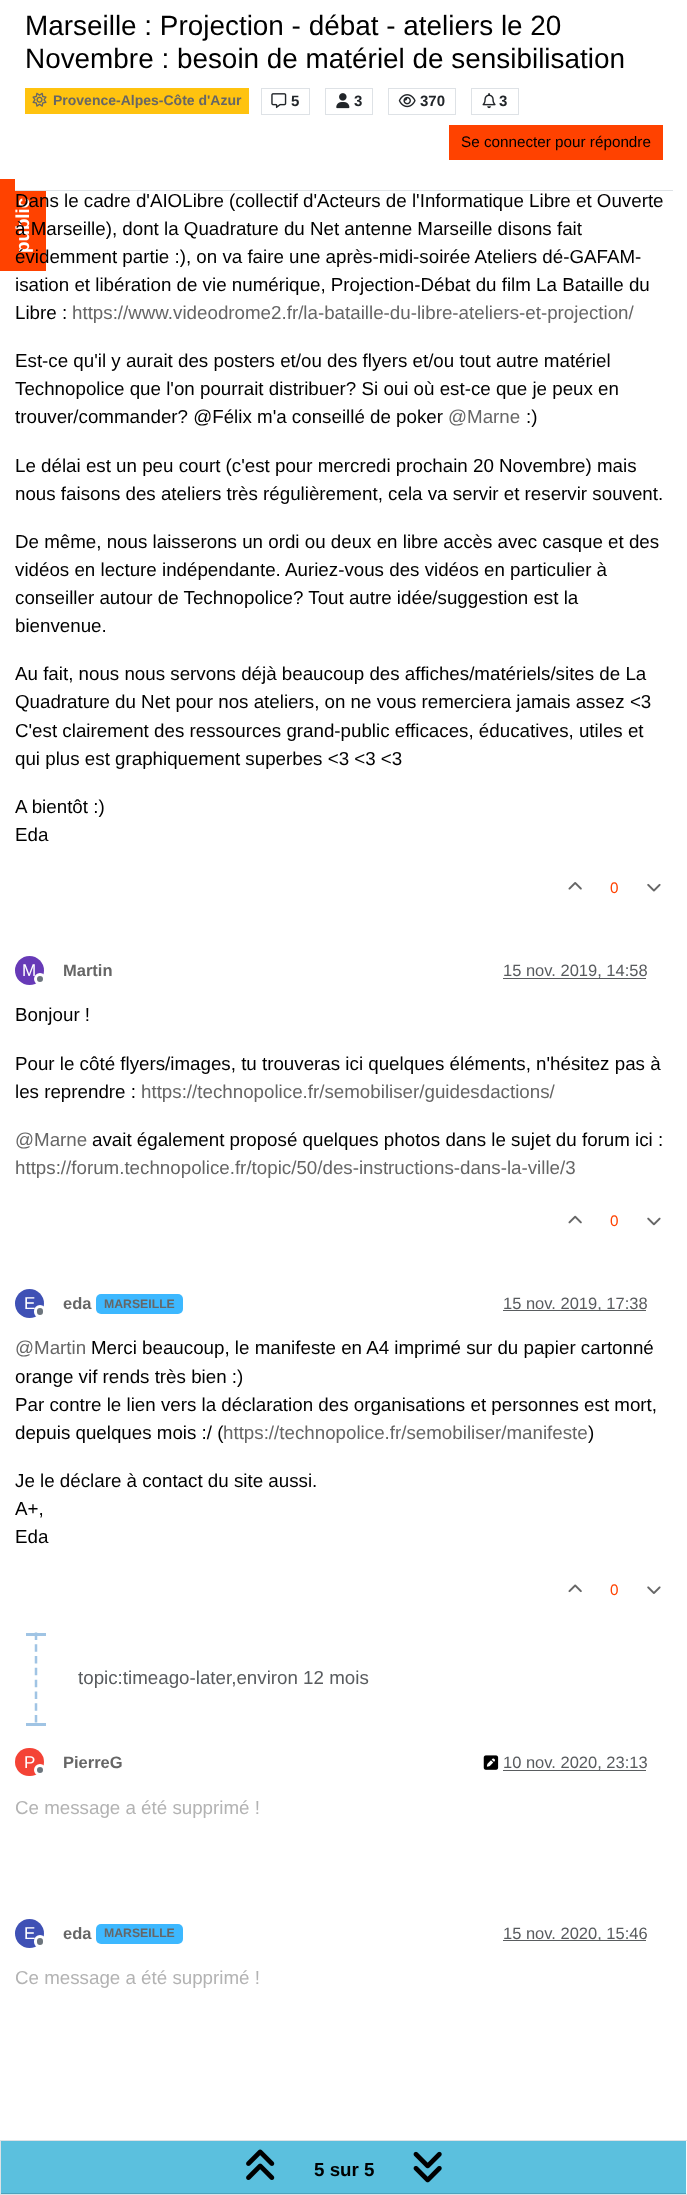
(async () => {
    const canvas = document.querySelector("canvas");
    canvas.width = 687;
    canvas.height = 2195;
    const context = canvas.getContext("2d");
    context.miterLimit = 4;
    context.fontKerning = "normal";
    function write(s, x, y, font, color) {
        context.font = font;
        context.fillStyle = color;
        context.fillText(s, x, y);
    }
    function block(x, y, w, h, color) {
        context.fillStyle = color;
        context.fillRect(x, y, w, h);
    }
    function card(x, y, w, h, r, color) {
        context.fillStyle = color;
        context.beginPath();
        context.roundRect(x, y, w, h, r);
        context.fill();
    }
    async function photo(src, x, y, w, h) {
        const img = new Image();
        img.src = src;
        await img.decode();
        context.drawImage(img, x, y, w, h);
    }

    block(0, 0, 687, 2195, "rgb(255, 255, 255)");
    block(0, 179, 46, 92, "rgb(255, 66, 0)");
    block(15, 179, 31, 11, "rgb(255, 255, 255)");
    block(15, 190, 658, 1, "rgb(222, 226, 230)");
    write("Marseille : Projection - débat - ateliers le 20", 25, 35, "27.9px Liberation Sans", "rgb(0, 0, 0)");
    write("Novembre : besoin de matériel de sensibilisation", 25, 68, "27.9px Liberation Sans", "rgb(0, 0, 0)");
    block(25, 88, 224, 26, "rgb(255, 195, 15)");
    await photo("media/1.png", 32, 92, 15, 15);
    write("Provence-Alpes-Côte d'Azur", 53, 105, "bold 14px Liberation Sans", "rgb(102, 102, 102)");
    context.strokeStyle = "rgb(222, 226, 230)";
    context.strokeRect(261.5, 88.5, 48, 26);
    await photo("media/2.png", 271, 93, 16, 16);
    write("5", 291, 106, "bold 15px Liberation Sans", "rgb(33, 37, 41)");
    context.strokeRect(325.5, 88.5, 47, 26);
    await photo("media/3.png", 336, 93, 14, 16);
    write("3", 354, 106, "bold 15px Liberation Sans", "rgb(33, 37, 41)");
    context.strokeRect(388.5, 88.5, 67, 26);
    await photo("media/4.png", 398, 94, 18, 14);
    write("370", 420, 106, "bold 15px Liberation Sans", "rgb(33, 37, 41)");
    context.strokeRect(471.5, 88.5, 47, 26);
    await photo("media/5.png", 482, 93, 14, 16);
    write("3", 499, 106, "bold 15px Liberation Sans", "rgb(33, 37, 41)");
    block(449, 125, 214, 35, "rgb(255, 66, 0)");
    write("Se connecter pour répondre", 461, 147, "15.25px Liberation Sans", "rgb(0, 0, 0)");
    context.font = "bold 18.75px Liberation Sans";
    context.fillStyle = "rgb(255, 255, 255)";
    context.save();
    context.translate(29, 253);
    context.rotate(-90 * Math.PI / 180);
    context.fillText("public", 0, 0);
    context.restore();
    write("Dans le cadre d'AIOLibre (collectif d'Acteurs de l'Informatique Libre et Ouverte", 15, 207, "18.75px Liberation Sans", "rgb(0, 0, 0)");
    write("à Marseille), dont la Quadrature du Net antenne Marseille disons fait", 15, 235, "18.75px Liberation Sans", "rgb(0, 0, 0)");
    write("évidemment partie :), on va faire une après-midi-soirée Ateliers dé-GAFAM-", 15, 263, "18.75px Liberation Sans", "rgb(0, 0, 0)");
    write("isation et libération de vie numérique, Projection-Débat du film La Bataille du", 15, 291, "18.75px Liberation Sans", "rgb(0, 0, 0)");
    write("Libre :", 15, 319, "18.75px Liberation Sans", "rgb(0, 0, 0)");
    write("https://www.videodrome2.fr/la-bataille-du-libre-ateliers-et-projection/", 72, 319, "18.75px Liberation Sans", "rgb(102, 102, 102)");
    write("Est-ce qu'il y aurait des posters et/ou des flyers et/ou tout autre matériel", 15, 367, "18.75px Liberation Sans", "rgb(0, 0, 0)");
    write("Technopolice que l'on pourrait distribuer? Si oui où est-ce que je peux en", 15, 395, "18.75px Liberation Sans", "rgb(0, 0, 0)");
    write("trouver/commander? @Félix m'a conseillé de poker", 15, 423, "18.75px Liberation Sans", "rgb(0, 0, 0)");
    write("@Marne", 448, 423, "18.75px Liberation Sans", "rgb(102, 102, 102)");
    write(":)", 526, 423, "18.75px Liberation Sans", "rgb(0, 0, 0)");
    write("Le délai est un peu court (c'est pour mercredi prochain 20 Novembre) mais", 15, 472, "18.75px Liberation Sans", "rgb(0, 0, 0)");
    write("nous faisons des ateliers très régulièrement, cela va servir et reservir souvent.", 15, 500, "18.75px Liberation Sans", "rgb(0, 0, 0)");
    write("De même, nous laisserons un ordi ou deux en libre accès avec casque et des", 15, 548, "18.75px Liberation Sans", "rgb(0, 0, 0)");
    write("vidéos en lecture indépendante. Auriez-vous des vidéos en particulier à", 15, 576, "18.75px Liberation Sans", "rgb(0, 0, 0)");
    write("conseiller autour de Technopolice? Tout autre idée/suggestion est la", 15, 604, "18.75px Liberation Sans", "rgb(0, 0, 0)");
    write("bienvenue.", 15, 632, "18.75px Liberation Sans", "rgb(0, 0, 0)");
    write("Au fait, nous nous servons déjà beaucoup des affiches/matériels/sites de La", 15, 680, "18.75px Liberation Sans", "rgb(0, 0, 0)");
    write("Quadrature du Net pour nos ateliers, on ne vous remerciera jamais assez <3", 15, 708, "18.75px Liberation Sans", "rgb(0, 0, 0)");
    write("C'est clairement des ressources grand-public efficaces, éducatives, utiles et", 15, 737, "18.75px Liberation Sans", "rgb(0, 0, 0)");
    write("qui plus est graphiquement superbes <3 <3 <3", 15, 765, "18.75px Liberation Sans", "rgb(0, 0, 0)");
    write("A bientôt :)", 15, 813, "18.75px Liberation Sans", "rgb(0, 0, 0)");
    write("Eda", 15, 841, "18.75px Liberation Sans", "rgb(0, 0, 0)");
    await photo("media/6.png", 568, 882, 14, 8);
    write("0", 610, 893, "15.25px Liberation Sans", "rgb(255, 66, 0)");
    await photo("media/7.png", 647, 883, 14, 9);
    context.fillStyle = "rgb(103, 58, 183)";
    context.beginPath();
    context.arc(29.5, 970.5, 14.5, 0, Math.PI * 2);
    context.fill();
    write("M", 22, 976, "17px Liberation Sans", "rgb(255, 255, 255)");
    context.fillStyle = "rgb(108, 117, 125)";
    context.beginPath();
    context.arc(40, 979, 4.5, 0, Math.PI * 2);
    context.fill();
    context.strokeStyle = "rgb(255, 255, 255)";
    context.lineWidth = 3;
    context.stroke();
    write("Martin", 63, 976, "bold 16.5px Liberation Sans", "rgb(102, 102, 102)");
    block(503, 978, 143, 1, "rgb(89, 92, 95)");
    write("15 nov. 2019, 14:58", 503, 976, "16.5px Liberation Sans", "rgb(88, 91, 94)");
    write("Bonjour !", 15, 1021, "18.75px Liberation Sans", "rgb(0, 0, 0)");
    write("Pour le côté flyers/images, tu trouveras ici quelques éléments, n'hésitez pas à", 15, 1070, "18.75px Liberation Sans", "rgb(0, 0, 0)");
    write("les reprendre :", 15, 1098, "18.75px Liberation Sans", "rgb(0, 0, 0)");
    write("https://technopolice.fr/semobiliser/guidesdactions/", 141, 1098, "18.75px Liberation Sans", "rgb(102, 102, 102)");
    write("@Marne", 15, 1146, "18.75px Liberation Sans", "rgb(102, 102, 102)");
    write("avait également proposé quelques photos dans le sujet du forum ici :", 92, 1146, "18.75px Liberation Sans", "rgb(0, 0, 0)");
    write("https://forum.technopolice.fr/topic/50/des-instructions-dans-la-ville/3", 15, 1174, "18.75px Liberation Sans", "rgb(102, 102, 102)");
    await photo("media/8.png", 568, 1215, 14, 9);
    write("0", 610, 1226, "15.25px Liberation Sans", "rgb(255, 66, 0)");
    await photo("media/9.png", 647, 1217, 14, 9);
    context.fillStyle = "rgb(63, 81, 181)";
    context.beginPath();
    context.arc(29.5, 1303.5, 14.5, 0, Math.PI * 2);
    context.fill();
    write("E", 24, 1309, "17px Liberation Sans", "rgb(255, 255, 255)");
    context.fillStyle = "rgb(108, 117, 125)";
    context.beginPath();
    context.roundRect(35.5, 1306.5, 9, 10, 4.5);
    context.fill();
    context.stroke();
    write("eda", 63, 1309, "bold 16.5px Liberation Sans", "rgb(102, 102, 102)");
    card(96, 1294, 87, 20, 5, "rgb(61, 184, 255)");
    write("MARSEILLE", 104, 1308, "bold 12.25px Liberation Sans", "rgb(102, 102, 102)");
    block(503, 1310, 143, 1, "rgb(89, 92, 95)");
    write("15 nov. 2019, 17:38", 503, 1309, "16.5px Liberation Sans", "rgb(88, 91, 94)");
    write("@Martin", 15, 1354, "18.75px Liberation Sans", "rgb(102, 102, 102)");
    write("Merci beaucoup, le manifeste en A4 imprimé sur du papier cartonné", 91, 1354, "18.75px Liberation Sans", "rgb(0, 0, 0)");
    write("orange vif rends très bien :)", 15, 1383, "18.75px Liberation Sans", "rgb(0, 0, 0)");
    write("Par contre le lien vers la déclaration des organisations et personnes est mort,", 15, 1411, "18.75px Liberation Sans", "rgb(0, 0, 0)");
    write("depuis quelques mois :/ (", 15, 1439, "18.75px Liberation Sans", "rgb(0, 0, 0)");
    write("https://technopolice.fr/semobiliser/manifeste", 223, 1439, "18.75px Liberation Sans", "rgb(102, 102, 102)");
    write(")", 588, 1439, "18.75px Liberation Sans", "rgb(0, 0, 0)");
    write("Je le déclare à contact du site aussi.", 15, 1487, "18.75px Liberation Sans", "rgb(0, 0, 0)");
    write("A+,", 15, 1515, "18.75px Liberation Sans", "rgb(0, 0, 0)");
    write("Eda", 15, 1543, "18.75px Liberation Sans", "rgb(0, 0, 0)");
    await photo("media/10.png", 568, 1584, 14, 9);
    write("0", 610, 1595, "15.25px Liberation Sans", "rgb(255, 66, 0)");
    await photo("media/11.png", 647, 1586, 14, 8);
    context.beginPath();
    context.moveTo(36, 1632.5);
    context.lineTo(36, 1722.5);
    context.strokeStyle = "rgb(160, 196, 228)";
    context.lineWidth = 2.5;
    context.setLineDash([7.5, 4.29]);
    context.stroke();
    block(26, 1633, 20, 3, "rgb(160, 196, 228)");
    write("topic:timeago-later,environ 12 mois", 78, 1684, "18.75px Liberation Sans", "rgb(88, 91, 94)");
    block(26, 1723, 20, 3, "rgb(160, 196, 228)");
    card(15, 1748, 29, 28, 14, "rgb(244, 67, 54)");
    write("P", 24, 1768, "17px Liberation Sans", "rgb(255, 255, 255)");
    context.fillStyle = "rgb(108, 117, 125)";
    context.beginPath();
    context.arc(40, 1770, 4.5, 0, Math.PI * 2);
    context.fill();
    context.strokeStyle = "rgb(255, 255, 255)";
    context.lineWidth = 3;
    context.setLineDash([]);
    context.stroke();
    write("PierreG", 63, 1768, "bold 16.5px Liberation Sans", "rgb(102, 102, 102)");
    await photo("media/12.png", 483, 1755, 16, 15);
    block(503, 1770, 143, 1, "rgb(89, 92, 95)");
    write("10 nov. 2020, 23:13", 503, 1768, "16.5px Liberation Sans", "rgb(88, 91, 94)");
    write("Ce message a été supprimé !", 15, 1814, "18.75px Liberation Sans", "rgb(179, 179, 179)");
    context.fillStyle = "rgb(63, 81, 181)";
    context.beginPath();
    context.arc(29.5, 1933.5, 14.5, 0, Math.PI * 2);
    context.fill();
    write("E", 24, 1939, "17px Liberation Sans", "rgb(255, 255, 255)");
    context.fillStyle = "rgb(108, 117, 125)";
    context.beginPath();
    context.roundRect(35.5, 1936.5, 9, 10, 4.5);
    context.fill();
    context.stroke();
    write("eda", 63, 1939, "bold 16.5px Liberation Sans", "rgb(102, 102, 102)");
    card(96, 1924, 87, 20, 5, "rgb(61, 184, 255)");
    write("MARSEILLE", 104, 1937, "bold 12.25px Liberation Sans", "rgb(102, 102, 102)");
    block(503, 1940, 143, 1, "rgb(89, 92, 95)");
    write("15 nov. 2020, 15:46", 503, 1939, "16.5px Liberation Sans", "rgb(88, 91, 94)");
    write("Ce message a été supprimé !", 15, 1984, "18.75px Liberation Sans", "rgb(179, 179, 179)");
    block(686, 2141, 1, 53, "rgb(248, 249, 250)");
    context.strokeStyle = "rgb(222, 226, 230)";
    context.lineWidth = 1;
    context.strokeRect(0.5, 2140.5, 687, 54);
    block(1, 2141, 685, 52, "rgb(91, 192, 222)");
    block(1, 2193, 685, 1, "rgb(77, 163, 189)");
    await photo("media/13.png", 246, 2149, 29, 31);
    write("5 sur 5", 314, 2176, "bold 18.75px Liberation Sans", "rgb(0, 0, 0)");
    await photo("media/14.png", 413, 2151, 29, 32);
})();
